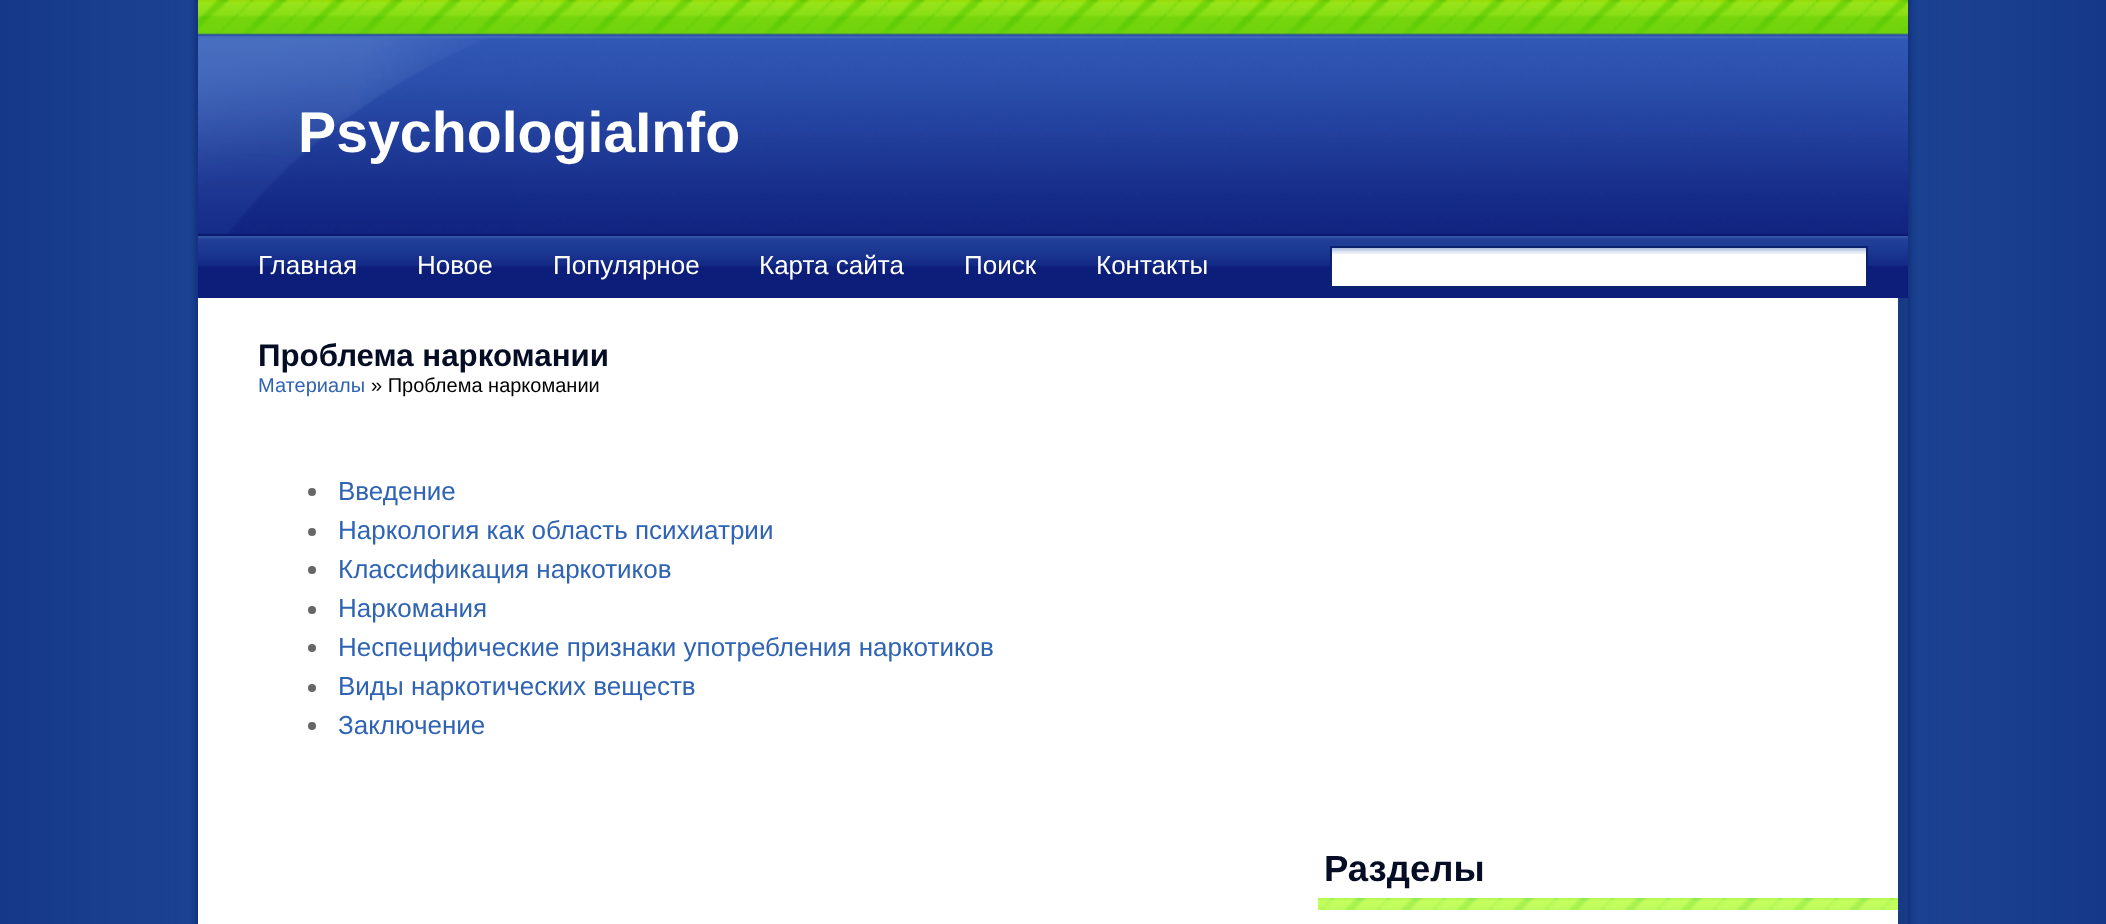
(async () => {
    const canvas = document.querySelector("canvas");
    canvas.width = 2106;
    canvas.height = 924;
    const context = canvas.getContext("2d");
    context.miterLimit = 4;
    context.fontKerning = "normal";
    function write(s, x, y, font, color) {
        context.font = font;
        context.fillStyle = color;
        context.fillText(s, x, y);
    }
    function block(x, y, w, h, color) {
        context.fillStyle = color;
        context.fillRect(x, y, w, h);
    }
    async function photo(src, x, y, w, h) {
        const img = new Image();
        img.src = src;
        await img.decode();
        context.drawImage(img, x, y, w, h);
    }

    block(0, 0, 2106, 924, "rgb(255, 255, 255)");
    await photo("media/1.png", 0, 0, 2106, 924);
    await photo("media/2.png", 198, 0, 1710, 236);
    await photo("media/3.png", 198, 36, 320, 198);
    write("PsychologiaInfo", 298, 152, "bold 57.25px Liberation Sans", "rgb(255, 255, 255)");
    await photo("media/4.png", 198, 236, 1710, 62);
    write("Главная", 258, 274, "26px Liberation Sans", "rgb(255, 255, 255)");
    write("Новое", 417, 274, "26px Liberation Sans", "rgb(255, 255, 255)");
    write("Популярное", 553, 274, "26px Liberation Sans", "rgb(255, 255, 255)");
    write("Карта сайта", 759, 274, "26px Liberation Sans", "rgb(255, 255, 255)");
    write("Поиск", 964, 274, "26px Liberation Sans", "rgb(255, 255, 255)");
    write("Контакты", 1096, 274, "26px Liberation Sans", "rgb(255, 255, 255)");
    block(1332, 254, 534, 32, "rgb(255, 255, 255)");
    await photo("media/5.png", 1332, 248, 534, 6);
    context.strokeStyle = "rgb(11, 35, 108)";
    context.lineWidth = 2;
    context.strokeRect(1331, 247, 536, 40);
    block(198, 298, 1700, 626, "rgb(255, 255, 255)");
    write("Проблема наркомании", 258, 366, "bold 31.25px Liberation Sans", "rgb(5, 13, 36)");
    write("Материалы", 258, 392, "20px Liberation Sans", "rgb(47, 99, 179)");
    write("» Проблема наркомании", 371, 392, "20px Liberation Sans", "rgb(0, 0, 0)");
    context.fillStyle = "rgb(102, 102, 102)";
    context.beginPath();
    context.arc(312, 492, 4, 0, Math.PI * 2);
    context.fill();
    write("Введение", 338, 500, "26px Liberation Sans", "rgb(47, 99, 179)");
    context.fillStyle = "rgb(102, 102, 102)";
    context.beginPath();
    context.arc(312, 532, 4, 0, Math.PI * 2);
    context.fill();
    write("Наркология как область психиатрии", 338, 539, "26px Liberation Sans", "rgb(47, 99, 179)");
    context.fillStyle = "rgb(102, 102, 102)";
    context.beginPath();
    context.arc(312, 570, 4, 0, Math.PI * 2);
    context.fill();
    write("Классификация наркотиков", 338, 578, "26px Liberation Sans", "rgb(47, 99, 179)");
    context.fillStyle = "rgb(102, 102, 102)";
    context.beginPath();
    context.arc(312, 610, 4, 0, Math.PI * 2);
    context.fill();
    write("Наркомания", 338, 617, "26px Liberation Sans", "rgb(47, 99, 179)");
    context.fillStyle = "rgb(102, 102, 102)";
    context.beginPath();
    context.arc(312, 648, 4, 0, Math.PI * 2);
    context.fill();
    write("Неспецифические признаки употребления наркотиков", 338, 656, "26px Liberation Sans", "rgb(47, 99, 179)");
    context.fillStyle = "rgb(102, 102, 102)";
    context.beginPath();
    context.arc(312, 688, 4, 0, Math.PI * 2);
    context.fill();
    write("Виды наркотических веществ", 338, 695, "26px Liberation Sans", "rgb(47, 99, 179)");
    context.fillStyle = "rgb(102, 102, 102)";
    context.beginPath();
    context.arc(312, 726, 4, 0, Math.PI * 2);
    context.fill();
    write("Заключение", 338, 734, "26px Liberation Sans", "rgb(47, 99, 179)");
    await photo("media/6.png", 1318, 898, 580, 12);
    write("Разделы", 1324, 881, "bold 36.5px Liberation Sans", "rgb(5, 13, 36)");
})();
